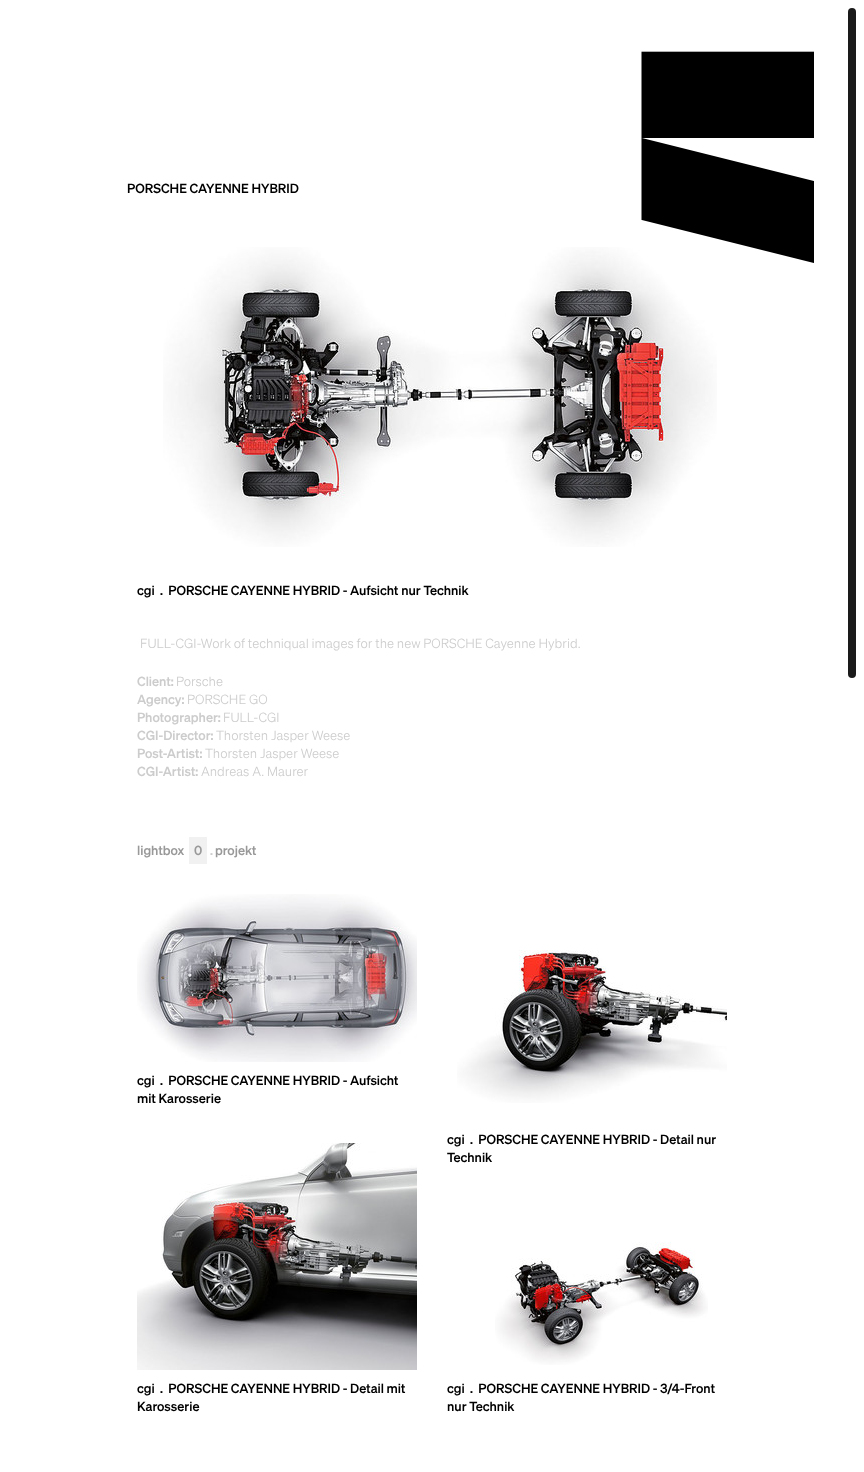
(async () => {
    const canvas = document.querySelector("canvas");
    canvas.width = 864;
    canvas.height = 1472;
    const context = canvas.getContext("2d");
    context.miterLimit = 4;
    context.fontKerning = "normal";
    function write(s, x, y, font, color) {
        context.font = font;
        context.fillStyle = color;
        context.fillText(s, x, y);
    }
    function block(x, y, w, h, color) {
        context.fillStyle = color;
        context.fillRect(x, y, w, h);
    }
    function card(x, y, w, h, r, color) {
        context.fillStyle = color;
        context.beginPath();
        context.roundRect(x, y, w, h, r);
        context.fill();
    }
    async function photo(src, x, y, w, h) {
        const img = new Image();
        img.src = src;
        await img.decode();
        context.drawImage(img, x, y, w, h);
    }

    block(0, 0, 864, 1472, "rgb(255, 255, 255)");
    await photo("media/2.png", 163, 247, 554, 300);
    await photo("media/1.png", 641, 51, 173, 212);
    write("PORSCHE CAYENNE HYBRID", 127, 193, "500 13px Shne", "rgb(0, 0, 0)");
    write("cgi", 137, 595, "500 13px Shne", "rgb(0, 0, 0)");
    write(".  PORSCHE CAYENNE HYBRID - Aufsicht nur Technik", 160, 595, "500 13px Shne", "rgb(0, 0, 0)");
    write("FULL-CGI-Work of techniqual images for the new PORSCHE Cayenne Hybrid.", 140, 648, "300 13px Shne", "rgb(204, 204, 204)");
    write("Client:", 137, 686, "500 13px Shne", "rgb(204, 204, 204)");
    write("Porsche", 176, 686, "300 13px Shne", "rgb(204, 204, 204)");
    write("Agency:", 137, 704, "500 13px Shne", "rgb(204, 204, 204)");
    write("PORSCHE GO", 187, 704, "300 13px Shne", "rgb(204, 204, 204)");
    write("Photographer:", 137, 722, "500 13px Shne", "rgb(204, 204, 204)");
    write("FULL-CGI", 223, 722, "300 13px Shne", "rgb(204, 204, 204)");
    write("CGI-Director:", 137, 740, "500 13px Shne", "rgb(204, 204, 204)");
    write("Thorsten Jasper Weese", 216, 740, "300 13px Shne", "rgb(204, 204, 204)");
    write("Post-Artist:", 137, 758, "500 13px Shne", "rgb(204, 204, 204)");
    write("Thorsten Jasper Weese", 205, 758, "300 13px Shne", "rgb(204, 204, 204)");
    write("CGI-Artist:", 137, 776, "500 13px Shne", "rgb(204, 204, 204)");
    write("Andreas A. Maurer", 201, 776, "300 13px Shne", "rgb(204, 204, 204)");
    write("lightbox", 137, 855, "500 13px Shne", "rgb(153, 153, 153)");
    block(189, 837, 18, 27, "rgb(241, 241, 241)");
    write("0", 194, 855, "500 13px Shne", "rgb(153, 153, 153)");
    write(".", 210, 855, "500 13px Shne", "rgb(204, 204, 204)");
    write("projekt", 215, 855, "500 13px Shne", "rgb(153, 153, 153)");
    await photo("media/3.png", 137, 894, 280, 168);
    write("cgi", 137, 1085, "500 13px Shne", "rgb(0, 0, 0)");
    write(".  PORSCHE CAYENNE HYBRID - Aufsicht", 160, 1085, "500 13px Shne", "rgb(0, 0, 0)");
    write("mit Karosserie", 137, 1103, "500 13px Shne", "rgb(0, 0, 0)");
    await photo("media/4.png", 457, 950, 270, 153);
    write("cgi", 447, 1144, "500 13px Shne", "rgb(0, 0, 0)");
    write(".  PORSCHE CAYENNE HYBRID - Detail nur", 470, 1144, "500 13px Shne", "rgb(0, 0, 0)");
    write("Technik", 447, 1162, "500 13px Shne", "rgb(0, 0, 0)");
    await photo("media/5.png", 137, 1143, 280, 227);
    write("cgi", 137, 1393, "500 13px Shne", "rgb(0, 0, 0)");
    write(".  PORSCHE CAYENNE HYBRID - Detail mit", 160, 1393, "500 13px Shne", "rgb(0, 0, 0)");
    write("Karosserie", 137, 1411, "500 13px Shne", "rgb(0, 0, 0)");
    await photo("media/6.png", 495, 1242, 213, 123);
    write("cgi", 447, 1393, "500 13px Shne", "rgb(0, 0, 0)");
    write(".  PORSCHE CAYENNE HYBRID - 3/4-Front", 470, 1393, "500 13px Shne", "rgb(0, 0, 0)");
    write("nur Technik", 447, 1411, "500 13px Shne", "rgb(0, 0, 0)");
    card(848, 8, 8, 670, 4, "rgb(26, 26, 26)");
})();
